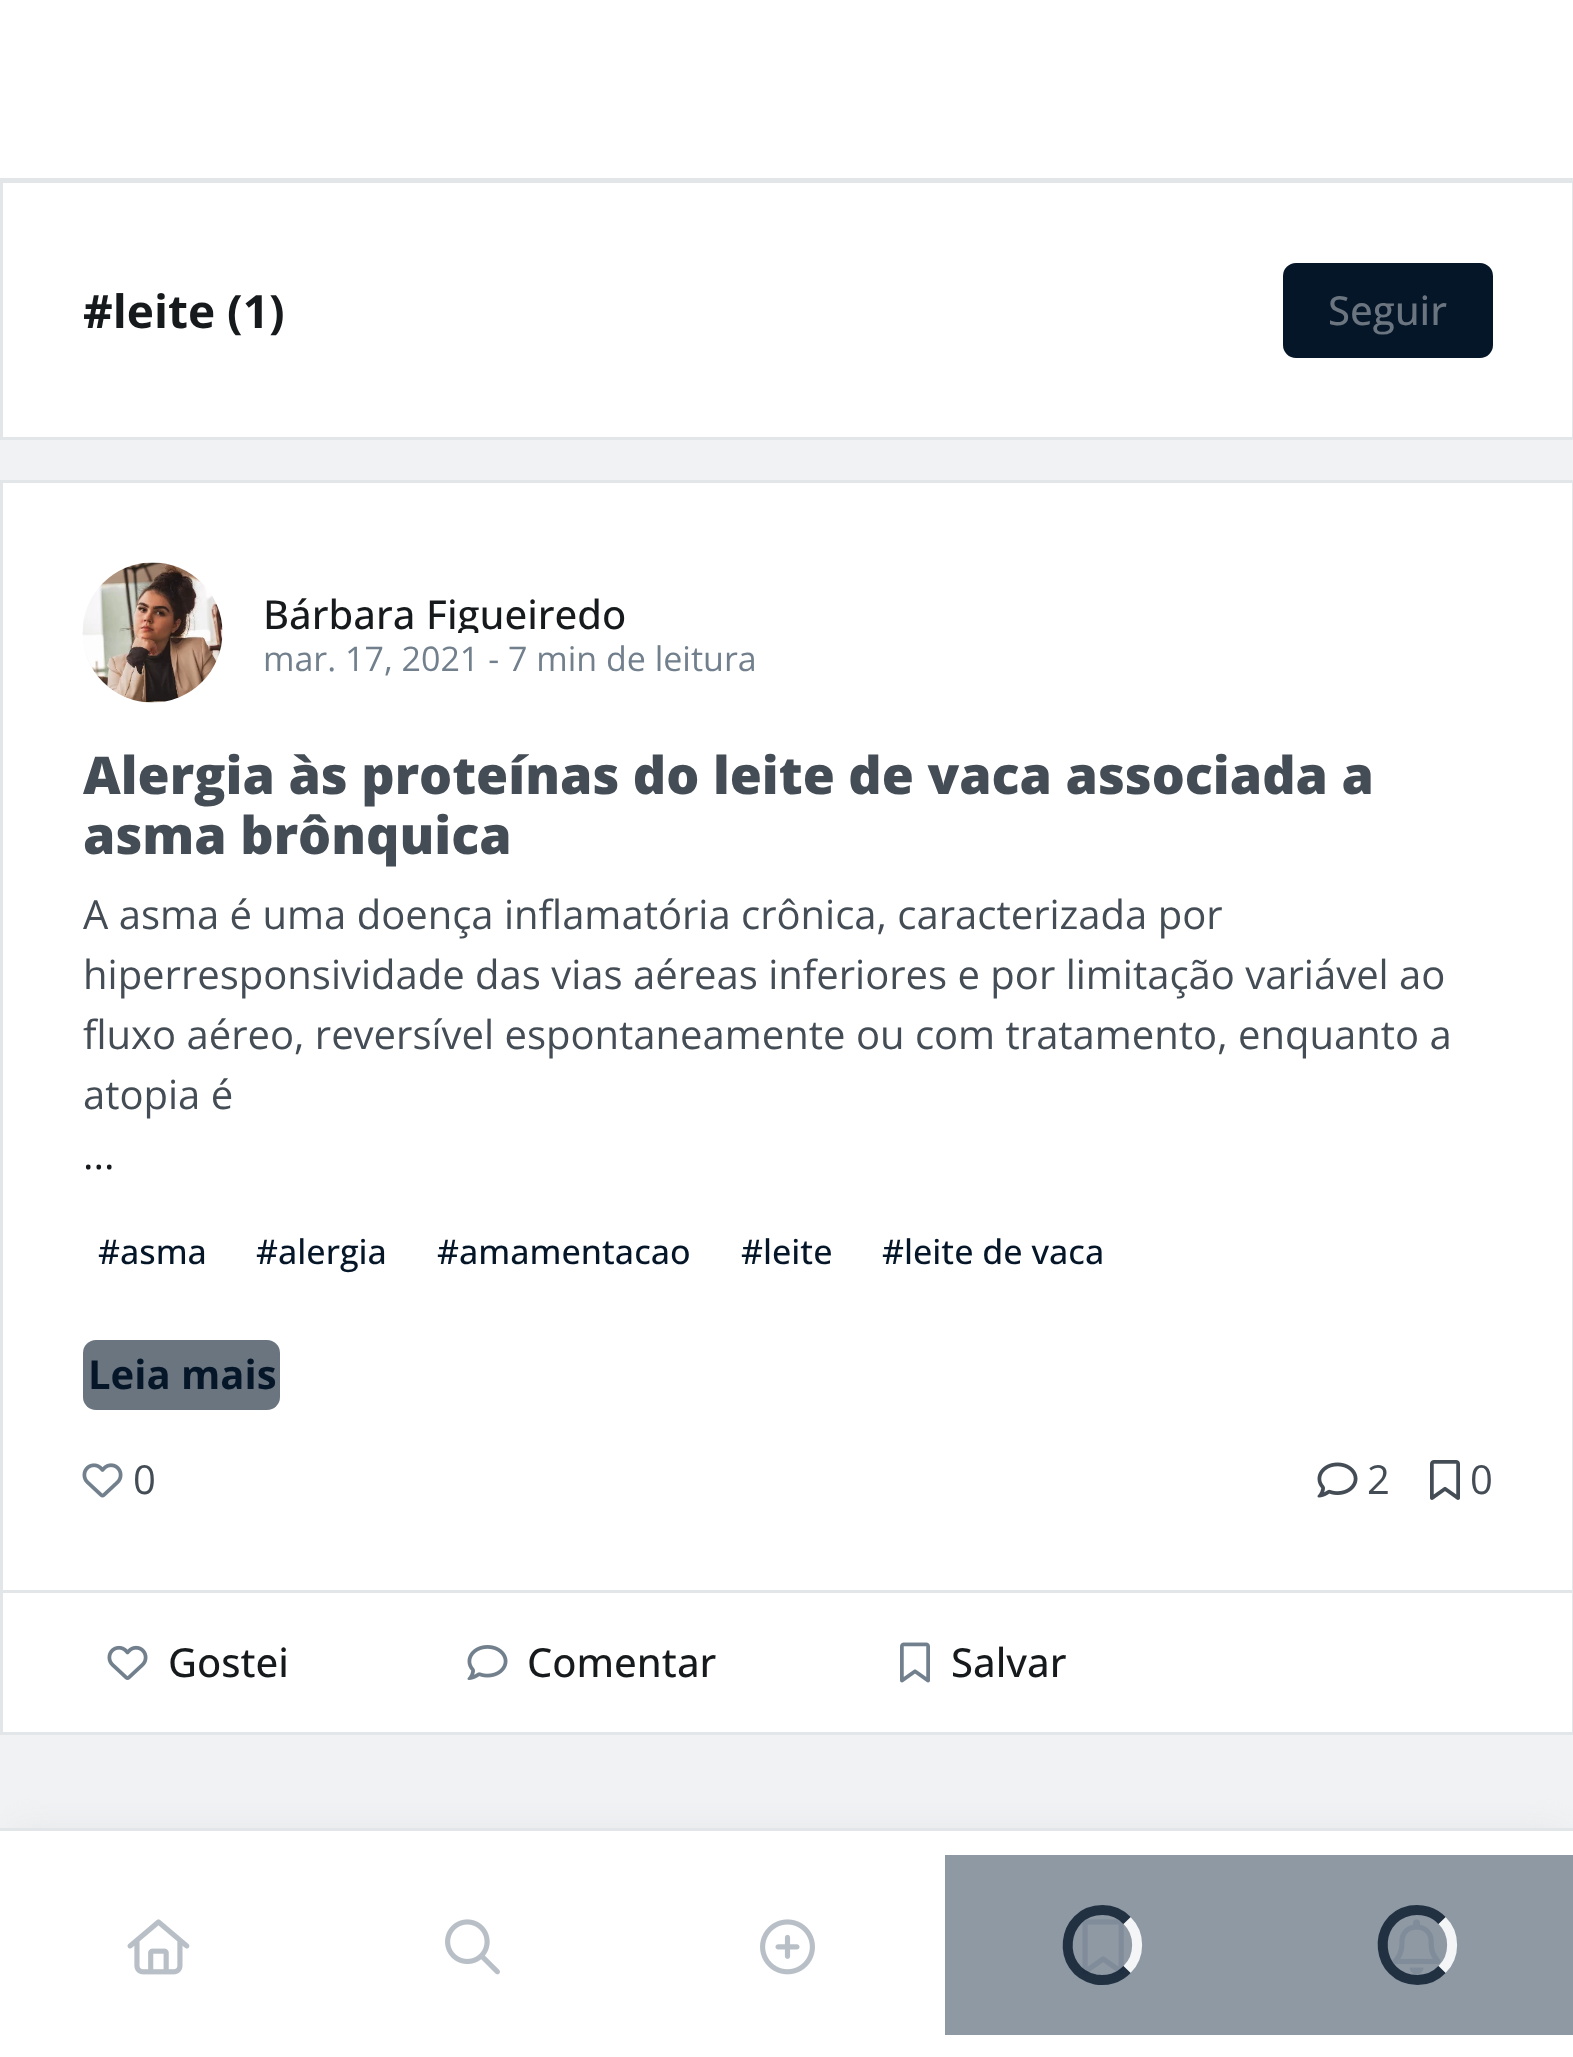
(async () => {
    const canvas = document.querySelector("canvas");
    canvas.width = 1573;
    canvas.height = 2057;
    const context = canvas.getContext("2d");
    context.miterLimit = 4;
    context.fontKerning = "normal";
    function write(s, x, y, font, color) {
        context.font = font;
        context.fillStyle = color;
        context.fillText(s, x, y);
    }
    function block(x, y, w, h, color) {
        context.fillStyle = color;
        context.fillRect(x, y, w, h);
    }
    function card(x, y, w, h, r, color) {
        context.fillStyle = color;
        context.beginPath();
        context.roundRect(x, y, w, h, r);
        context.fill();
    }
    async function photo(src, x, y, w, h) {
        const img = new Image();
        img.src = src;
        await img.decode();
        context.drawImage(img, x, y, w, h);
    }

    block(0, 0, 1573, 2057, "rgb(241, 242, 244)");
    block(0, 0, 1573, 178, "rgb(255, 255, 255)");
    block(0, 178, 1573, 2, "rgb(227, 230, 232)");
    context.fillStyle = "rgb(255, 255, 255)";
    context.beginPath();
    context.rect(1.5, 181.5, 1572, 257);
    context.fill();
    context.strokeStyle = "rgb(227, 230, 232)";
    context.lineWidth = 3;
    context.stroke();
    write("#leite (1)", 83, 328, "bold 46px Open Sans", "rgb(23, 26, 28)");
    context.fillStyle = "rgb(6, 22, 41)";
    context.beginPath();
    context.roundRect(1285.5, 265.5, 205, 90, 10.5);
    context.fill();
    context.strokeStyle = "rgb(6, 22, 41)";
    context.lineWidth = 5;
    context.stroke();
    write("Seguir", 1328, 325, "500 40px Open Sans", "rgb(107, 117, 128)");
    context.fillStyle = "rgb(255, 255, 255)";
    context.beginPath();
    context.rect(1.5, 481.5, 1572, 1252);
    context.fill();
    context.strokeStyle = "rgb(227, 230, 232)";
    context.lineWidth = 3;
    context.stroke();
    context.beginPath();
    context.moveTo(88.5, 633.5);
    context.bezierCurveTo(88.5, 598.5, 116.5, 570.5, 151.5, 570.5);
    context.bezierCurveTo(186.5, 570.5, 214.5, 598.5, 214.5, 633.5);
    context.bezierCurveTo(214.5, 668.5, 186.5, 696.5, 151.5, 696.5);
    context.bezierCurveTo(116.5, 696.5, 88.5, 668.5, 88.5, 633.5);
    context.closePath();
    context.strokeStyle = "rgb(241, 242, 244)";
    context.lineWidth = 11.2;
    context.stroke();
    context.beginPath();
    context.moveTo(88.5, 634);
    context.lineTo(88.5, 633.5);
    context.strokeStyle = "rgb(6, 22, 41)";
    context.stroke();
    await photo("media/1.png", 82, 562, 141, 141);
    context.save();
    context.beginPath();
    context.rect(263, 583, 492, 50);
    context.clip();
    write("Bárbara Figueiredo", 263, 629, "500 40px Open Sans", "rgb(23, 26, 28)");
    context.restore();
    write("mar. 17, 2021 - 7 min de leitura", 263, 671, "34px Open Sans", "rgb(114, 128, 141)");
    write("Alergia às proteínas do leite de vaca associada a", 83, 794, "800 52px Open Sans", "rgb(68, 77, 85)");
    write("asma brônquica", 83, 854, "800 52px Open Sans", "rgb(68, 77, 85)");
    write("A asma é uma doença inflamatória crônica, caracterizada por", 83, 929, "40px Open Sans", "rgb(68, 77, 85)");
    write("hiperresponsividade das vias aéreas inferiores e por limitação variável ao", 83, 989, "40px Open Sans", "rgb(68, 77, 85)");
    write("fluxo aéreo, reversível espontaneamente ou com tratamento, enquanto a", 83, 1049, "40px Open Sans", "rgb(68, 77, 85)");
    write("atopia é", 83, 1109, "40px Open Sans", "rgb(68, 77, 85)");
    write("...", 83, 1169, "40px Open Sans", "rgb(23, 26, 28)");
    write("#asma", 98, 1264, "500 34px Open Sans", "rgb(6, 22, 41)");
    write("#alergia", 256, 1264, "500 34px Open Sans", "rgb(6, 22, 41)");
    write("#amamentacao", 437, 1264, "500 34px Open Sans", "rgb(6, 22, 41)");
    write("#leite", 741, 1264, "500 34px Open Sans", "rgb(6, 22, 41)");
    write("#leite de vaca", 882, 1264, "500 34px Open Sans", "rgb(6, 22, 41)");
    card(83, 1340, 197, 70, 13, "rgb(107, 117, 128)");
    write("Leia mais", 88, 1389, "bold 40px Open Sans", "rgb(6, 22, 41)");
    await photo("media/2.png", 82, 1463, 41, 35);
    write("0", 133, 1494, "40px Open Sans", "rgb(68, 77, 85)");
    await photo("media/3.png", 1317, 1462, 41, 36);
    write("2", 1367, 1494, "40px Open Sans", "rgb(68, 77, 85)");
    await photo("media/4.png", 1430, 1460, 30, 40);
    write("0", 1470, 1494, "40px Open Sans", "rgb(68, 77, 85)");
    block(3, 1590, 1570, 3, "rgb(227, 230, 232)");
    await photo("media/5.png", 107, 1645, 41, 35);
    write("Gostei", 168, 1677, "500 40px Open Sans", "rgb(23, 26, 28)");
    await photo("media/6.png", 467, 1645, 41, 35);
    write("Comentar", 527, 1677, "500 40px Open Sans", "rgb(23, 26, 28)");
    await photo("media/7.png", 900, 1642, 30, 41);
    write("Salvar", 951, 1677, "500 40px Open Sans", "rgb(23, 26, 28)");
    context.fillStyle = "rgb(227, 230, 232)";
    context.filter = "blur(15px)";
    context.beginPath();
    context.rect(13, 1830, 1550, 205);
    context.fill();
    context.filter = "none";
    block(0, 1831, 1573, 226, "rgb(255, 255, 255)");
    block(945, 1855, 628, 180, "rgb(142, 153, 164)");
    block(0, 1828, 1573, 3, "rgb(227, 230, 232)");
    await photo("media/8.png", 127, 1919, 63, 56);
    await photo("media/9.png", 445, 1919, 55, 56);
    await photo("media/10.png", 760, 1919, 55, 56);
    await photo("media/11.png", 1082, 1919, 42, 56);
    context.beginPath();
    context.moveTo(1127, 1920.5);
    context.bezierCurveTo(1140.5, 1933.5, 1140.5, 1956.5, 1127, 1969.5);
    context.strokeStyle = "rgb(244, 245, 246)";
    context.lineWidth = 10;
    context.stroke();
    context.beginPath();
    context.moveTo(1127, 1969.5);
    context.bezierCurveTo(1119, 1978, 1107, 1981.5, 1095.5, 1979.5);
    context.bezierCurveTo(1054.5, 1971, 1060.5, 1910, 1102.5, 1910);
    context.bezierCurveTo(1111.5, 1910, 1120.5, 1913.5, 1127, 1920.5);
    context.strokeStyle = "rgba(6, 22, 41, 0.8)";
    context.stroke();
    await photo("media/12.png", 1392, 1919, 49, 56);
    context.beginPath();
    context.moveTo(1442, 1920.5);
    context.bezierCurveTo(1455.5, 1933.5, 1455.5, 1956.5, 1442, 1969.5);
    context.strokeStyle = "rgb(244, 245, 246)";
    context.stroke();
    context.beginPath();
    context.moveTo(1442, 1969.5);
    context.bezierCurveTo(1435.5, 1976.5, 1426.5, 1980, 1417.5, 1980);
    context.bezierCurveTo(1375.5, 1980, 1369.5, 1919, 1410.5, 1910.5);
    context.bezierCurveTo(1422, 1908.5, 1434, 1912, 1442, 1920.5);
    context.strokeStyle = "rgba(6, 22, 41, 0.8)";
    context.stroke();
})();
